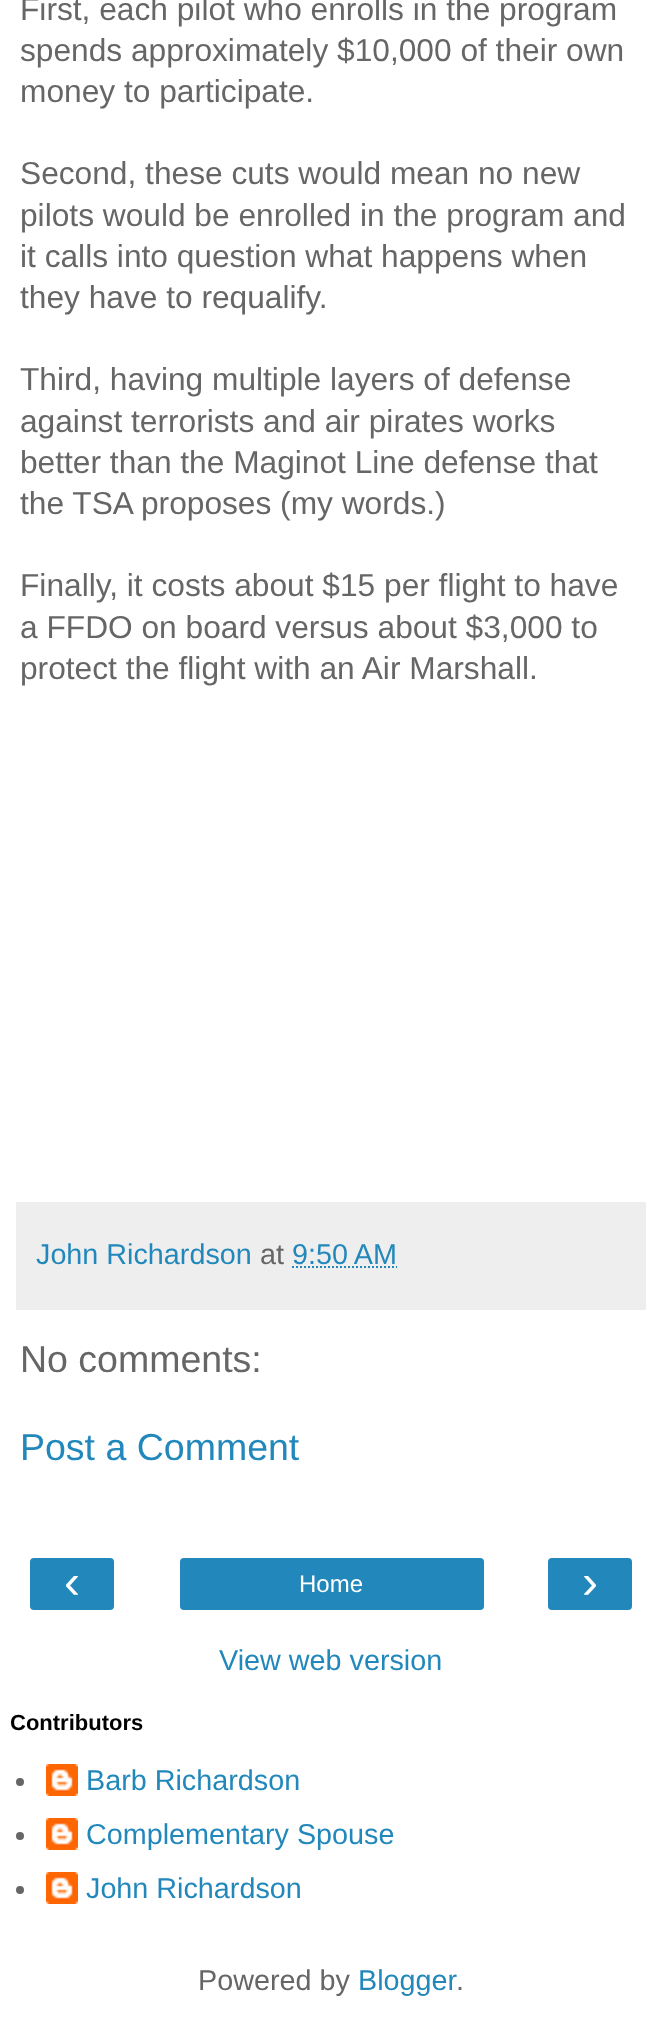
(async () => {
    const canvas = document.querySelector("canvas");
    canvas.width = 662;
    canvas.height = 2019;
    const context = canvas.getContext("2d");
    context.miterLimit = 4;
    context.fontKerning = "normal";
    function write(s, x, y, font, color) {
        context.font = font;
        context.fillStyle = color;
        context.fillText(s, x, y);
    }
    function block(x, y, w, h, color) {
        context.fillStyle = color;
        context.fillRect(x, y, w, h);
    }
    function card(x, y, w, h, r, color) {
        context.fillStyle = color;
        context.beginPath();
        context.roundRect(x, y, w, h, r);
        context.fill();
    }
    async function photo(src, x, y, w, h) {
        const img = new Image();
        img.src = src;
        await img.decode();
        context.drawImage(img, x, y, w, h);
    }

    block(0, 0, 662, 2019, "rgb(255, 255, 255)");
    write("First, each pilot who enrolls in the program", 20, 20, "31.7px Liberation Sans", "rgb(102, 102, 102)");
    write("spends approximately $10,000 of their own", 20, 61, "31.7px Liberation Sans", "rgb(102, 102, 102)");
    write("money to participate.", 20, 102, "31.7px Liberation Sans", "rgb(102, 102, 102)");
    write("Second, these cuts would mean no new", 20, 184, "31.7px Liberation Sans", "rgb(102, 102, 102)");
    write("pilots would be enrolled in the program and", 20, 226, "31.7px Liberation Sans", "rgb(102, 102, 102)");
    write("it calls into question what happens when", 20, 267, "31.7px Liberation Sans", "rgb(102, 102, 102)");
    write("they have to requalify.", 20, 308, "31.7px Liberation Sans", "rgb(102, 102, 102)");
    write("Third, having multiple layers of defense", 20, 390, "31.7px Liberation Sans", "rgb(102, 102, 102)");
    write("against terrorists and air pirates works", 20, 432, "31.7px Liberation Sans", "rgb(102, 102, 102)");
    write("better than the Maginot Line defense that", 20, 473, "31.7px Liberation Sans", "rgb(102, 102, 102)");
    write("the TSA proposes (my words.)", 20, 514, "31.7px Liberation Sans", "rgb(102, 102, 102)");
    write("Finally, it costs about $15 per flight to have", 20, 596, "31.7px Liberation Sans", "rgb(102, 102, 102)");
    write("a FFDO on board versus about $3,000 to", 20, 638, "31.7px Liberation Sans", "rgb(102, 102, 102)");
    write("protect the flight with an Air Marshall.", 20, 679, "31.7px Liberation Sans", "rgb(102, 102, 102)");
    block(16, 1202, 630, 108, "rgb(238, 238, 238)");
    write("John Richardson", 36, 1264, "28.75px Liberation Sans", "rgb(34, 136, 187)");
    write("at", 260, 1264, "28.75px Liberation Sans", "rgb(102, 102, 102)");
    write("9:50 AM", 292, 1264, "28.75px Liberation Sans", "rgb(34, 136, 187)");
    context.beginPath();
    context.moveTo(292, 1267);
    context.lineTo(397, 1267);
    context.strokeStyle = "rgb(34, 136, 187)";
    context.lineWidth = 2;
    context.setLineDash([2, 2]);
    context.stroke();
    write("No comments:", 20, 1372, "37.5px Liberation Sans", "rgb(102, 102, 102)");
    write("Post a Comment", 20, 1460, "37.5px Liberation Sans", "rgb(34, 136, 187)");
    card(30, 1558, 84, 52, 4, "rgb(34, 136, 187)");
    write("‹", 64, 1598, "48px Liberation Sans", "rgb(255, 255, 255)");
    card(180, 1558, 304, 52, 4, "rgb(34, 136, 187)");
    write("Home", 299, 1592, "24px Liberation Sans", "rgb(255, 255, 255)");
    card(548, 1558, 84, 52, 4, "rgb(34, 136, 187)");
    write("›", 582, 1598, "48px Liberation Sans", "rgb(255, 255, 255)");
    write("View web version", 219, 1670, "28.75px Liberation Sans", "rgb(34, 136, 187)");
    write("Contributors", 10, 1730, "bold 22px Liberation Sans", "rgb(0, 0, 0)");
    context.fillStyle = "rgb(102, 102, 102)";
    context.beginPath();
    context.arc(20, 1782, 4, 0, Math.PI * 2);
    context.fill();
    await photo("media/1.png", 46, 1764, 32, 32);
    write("Barb Richardson", 86, 1790, "28.75px Liberation Sans", "rgb(34, 136, 187)");
    context.fillStyle = "rgb(102, 102, 102)";
    context.beginPath();
    context.arc(20, 1836, 4, 0, Math.PI * 2);
    context.fill();
    await photo("media/1.png", 46, 1818, 32, 32);
    write("Complementary Spouse", 86, 1844, "28.75px Liberation Sans", "rgb(34, 136, 187)");
    context.fillStyle = "rgb(102, 102, 102)";
    context.beginPath();
    context.arc(20, 1890, 4, 0, Math.PI * 2);
    context.fill();
    await photo("media/1.png", 46, 1872, 32, 32);
    write("John Richardson", 86, 1898, "28.75px Liberation Sans", "rgb(34, 136, 187)");
    write("Powered by", 198, 1990, "28.75px Liberation Sans", "rgb(102, 102, 102)");
    write("Blogger", 358, 1990, "28.75px Liberation Sans", "rgb(34, 136, 187)");
    write(".", 456, 1990, "28.75px Liberation Sans", "rgb(102, 102, 102)");
})();
